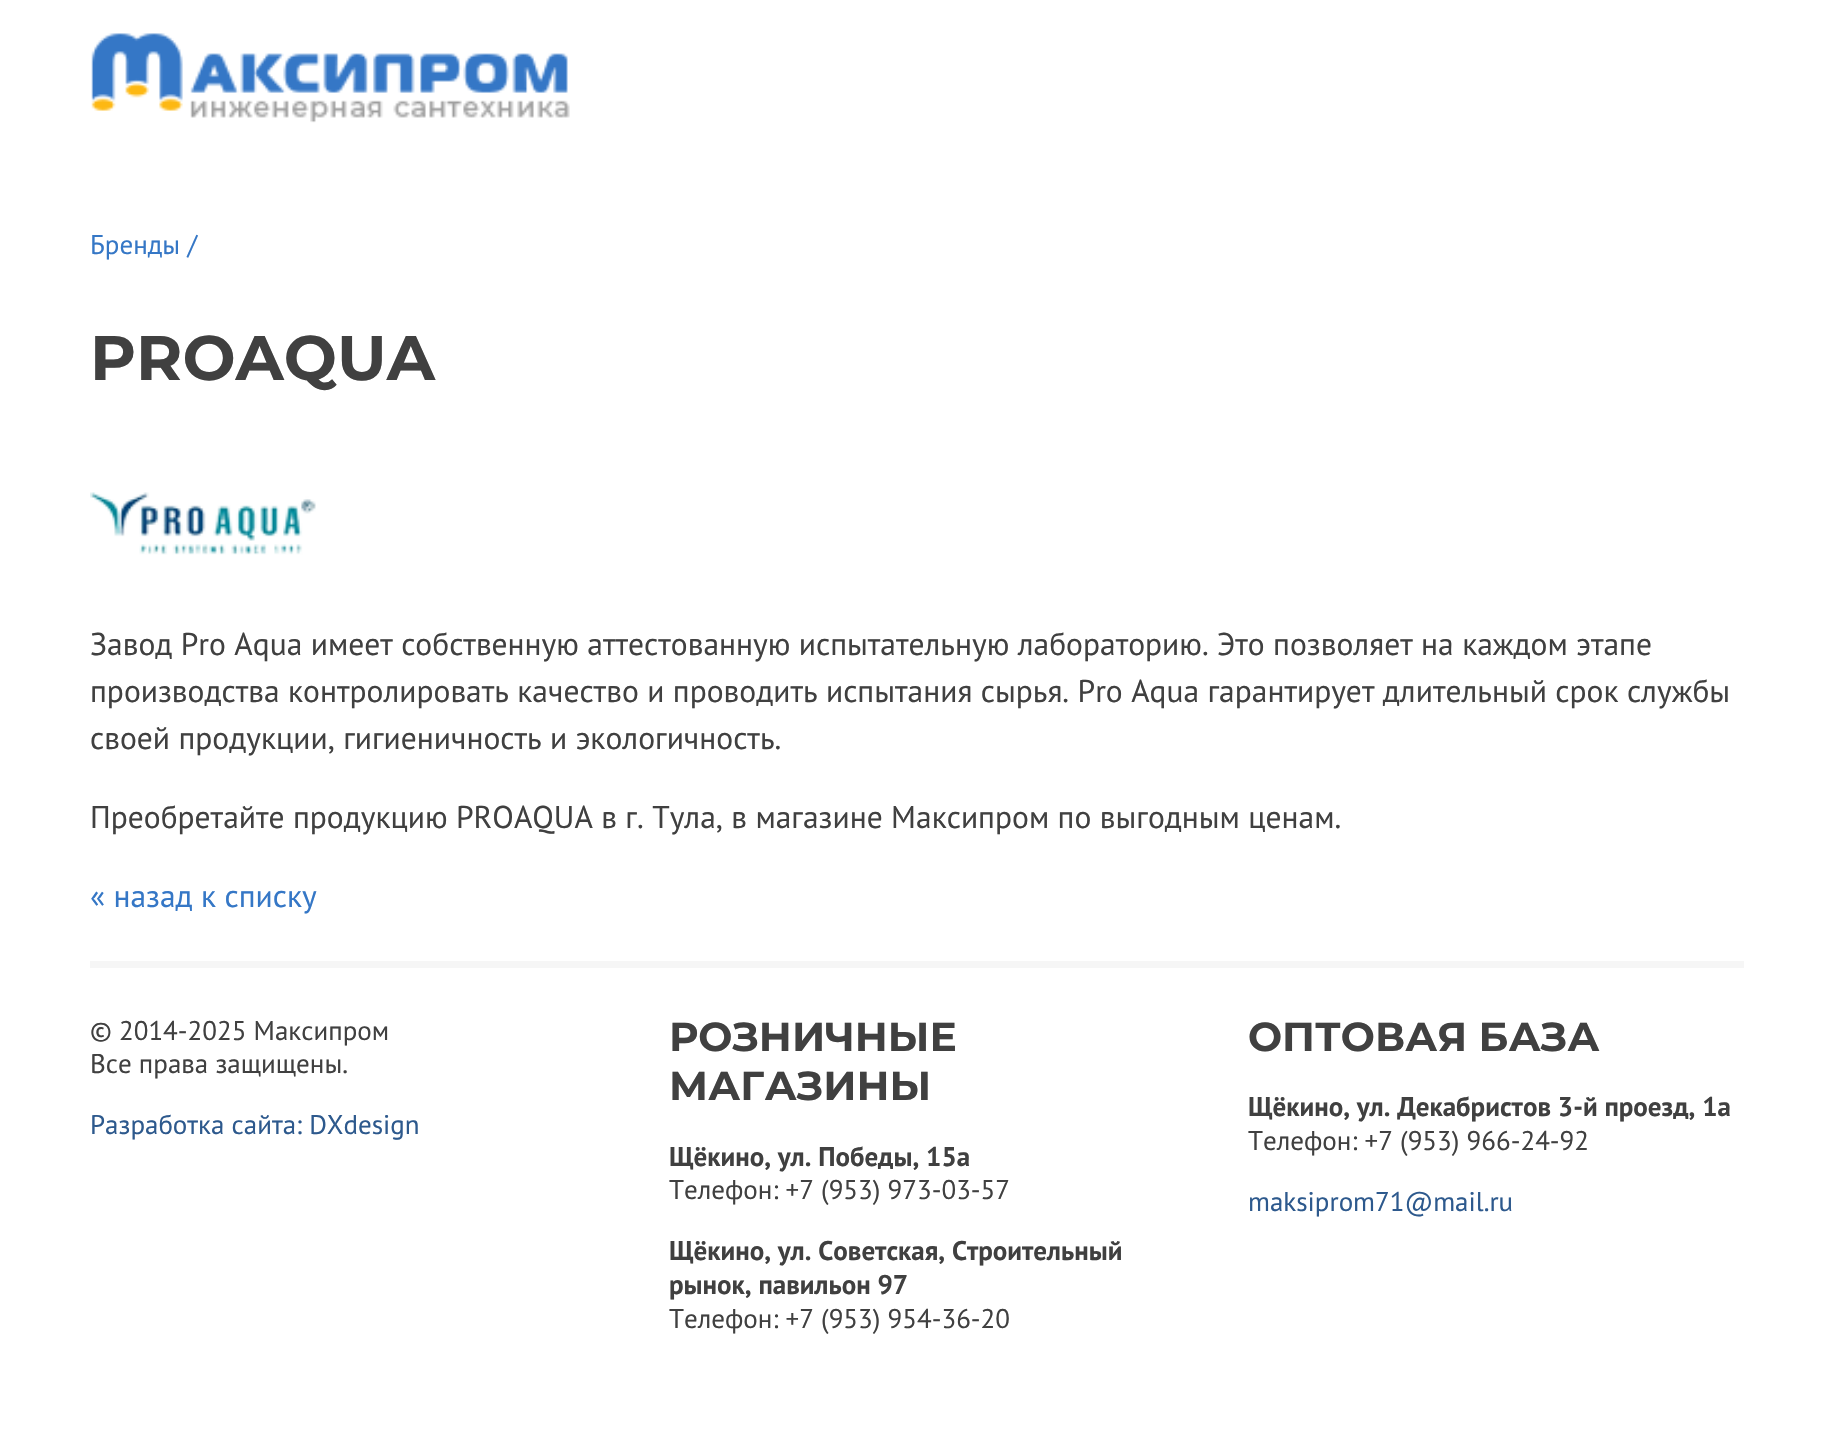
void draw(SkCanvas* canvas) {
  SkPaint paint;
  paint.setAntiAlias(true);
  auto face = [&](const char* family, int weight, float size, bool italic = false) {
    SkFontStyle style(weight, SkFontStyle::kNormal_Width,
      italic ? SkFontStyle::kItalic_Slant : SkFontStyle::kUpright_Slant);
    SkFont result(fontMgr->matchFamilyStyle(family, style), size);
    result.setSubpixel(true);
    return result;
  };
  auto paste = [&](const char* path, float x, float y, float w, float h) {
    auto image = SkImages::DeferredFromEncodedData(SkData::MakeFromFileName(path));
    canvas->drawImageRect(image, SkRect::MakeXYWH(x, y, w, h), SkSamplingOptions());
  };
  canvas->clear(0xffffffff);
  paste("img/1.png", 91, 33, 479, 90);
  paste("img/2.png", 90, 492, 226, 63);
  paint.setColor(0xfff6f6f6);
  canvas->drawRect(SkRect::MakeXYWH(90, 961, 1654, 7), paint);
  auto f0 = face("PT Sans", 400, 27);
  paint.setColor(0xff3577c6);
  canvas->drawString("Бренды /", 90, 254, f0, paint);
  auto f1 = face("Montserrat", 700, 63);
  paint.setColor(0xff404040);
  canvas->drawString("PROAQUA", 90, 380, f1, paint);
  auto f2 = face("PT Sans", 400, 31.5f);
  {
    const struct { const char* s; float x, y; } items[] = {
      {"Завод Pro Aqua имеет собственную аттестованную испытательную лабораторию. Это позволяет на каждом этапе", 90, 655},
      {"производства контролировать качество и проводить испытания сырья. Pro Aqua гарантирует длительный срок службы", 90, 702},
      {"своей продукции, гигиеничность и экологичность.", 90, 749},
      {"Преобретайте продукцию PROAQUA в г. Тула, в магазине Максипром по выгодным ценам.", 90, 828},
    };
    for (auto [s, x, y] : items) {
      canvas->drawString(s, x, y, f2, paint);
    }
  }
  paint.setColor(0xff3577c6);
  canvas->drawString("« назад к списку", 90, 907, f2, paint);
  paint.setColor(0xff404040);
  canvas->drawString("© 2014-2025 Максипром", 90, 1040, f0, paint);
  canvas->drawString("Все права защищены.", 90, 1073, f0, paint);
  paint.setColor(0xff2d598d);
  canvas->drawString("Разработка сайта: DXdesign", 90, 1134, f0, paint);
  auto f3 = face("Montserrat", 700, 40.5f);
  paint.setColor(0xff404040);
  canvas->drawString("РОЗНИЧНЫЕ", 669, 1051, f3, paint);
  canvas->drawString("МАГАЗИНЫ", 669, 1100, f3, paint);
  auto f4 = face("PT Sans", 700, 27);
  canvas->drawString("Щёкино, ул. Победы, 15а", 669, 1166, f4, paint);
  canvas->drawString("Телефон: +7 (953) 973-03-57", 669, 1199, f0, paint);
  canvas->drawString("Щёкино, ул. Советская, Строительный", 669, 1260, f4, paint);
  canvas->drawString("рынок, павильон 97", 669, 1294, f4, paint);
  canvas->drawString("Телефон: +7 (953) 954-36-20", 669, 1328, f0, paint);
  canvas->drawString("ОПТОВАЯ БАЗА", 1248, 1051, f3, paint);
  canvas->drawString("Щёкино, ул. Декабристов 3-й проезд, 1а", 1248, 1116, f4, paint);
  canvas->drawString("Телефон: +7 (953) 966-24-92", 1248, 1150, f0, paint);
  paint.setColor(0xff2d598d);
  canvas->drawString("maksiprom71@mail.ru", 1248, 1211, f0, paint);
}
